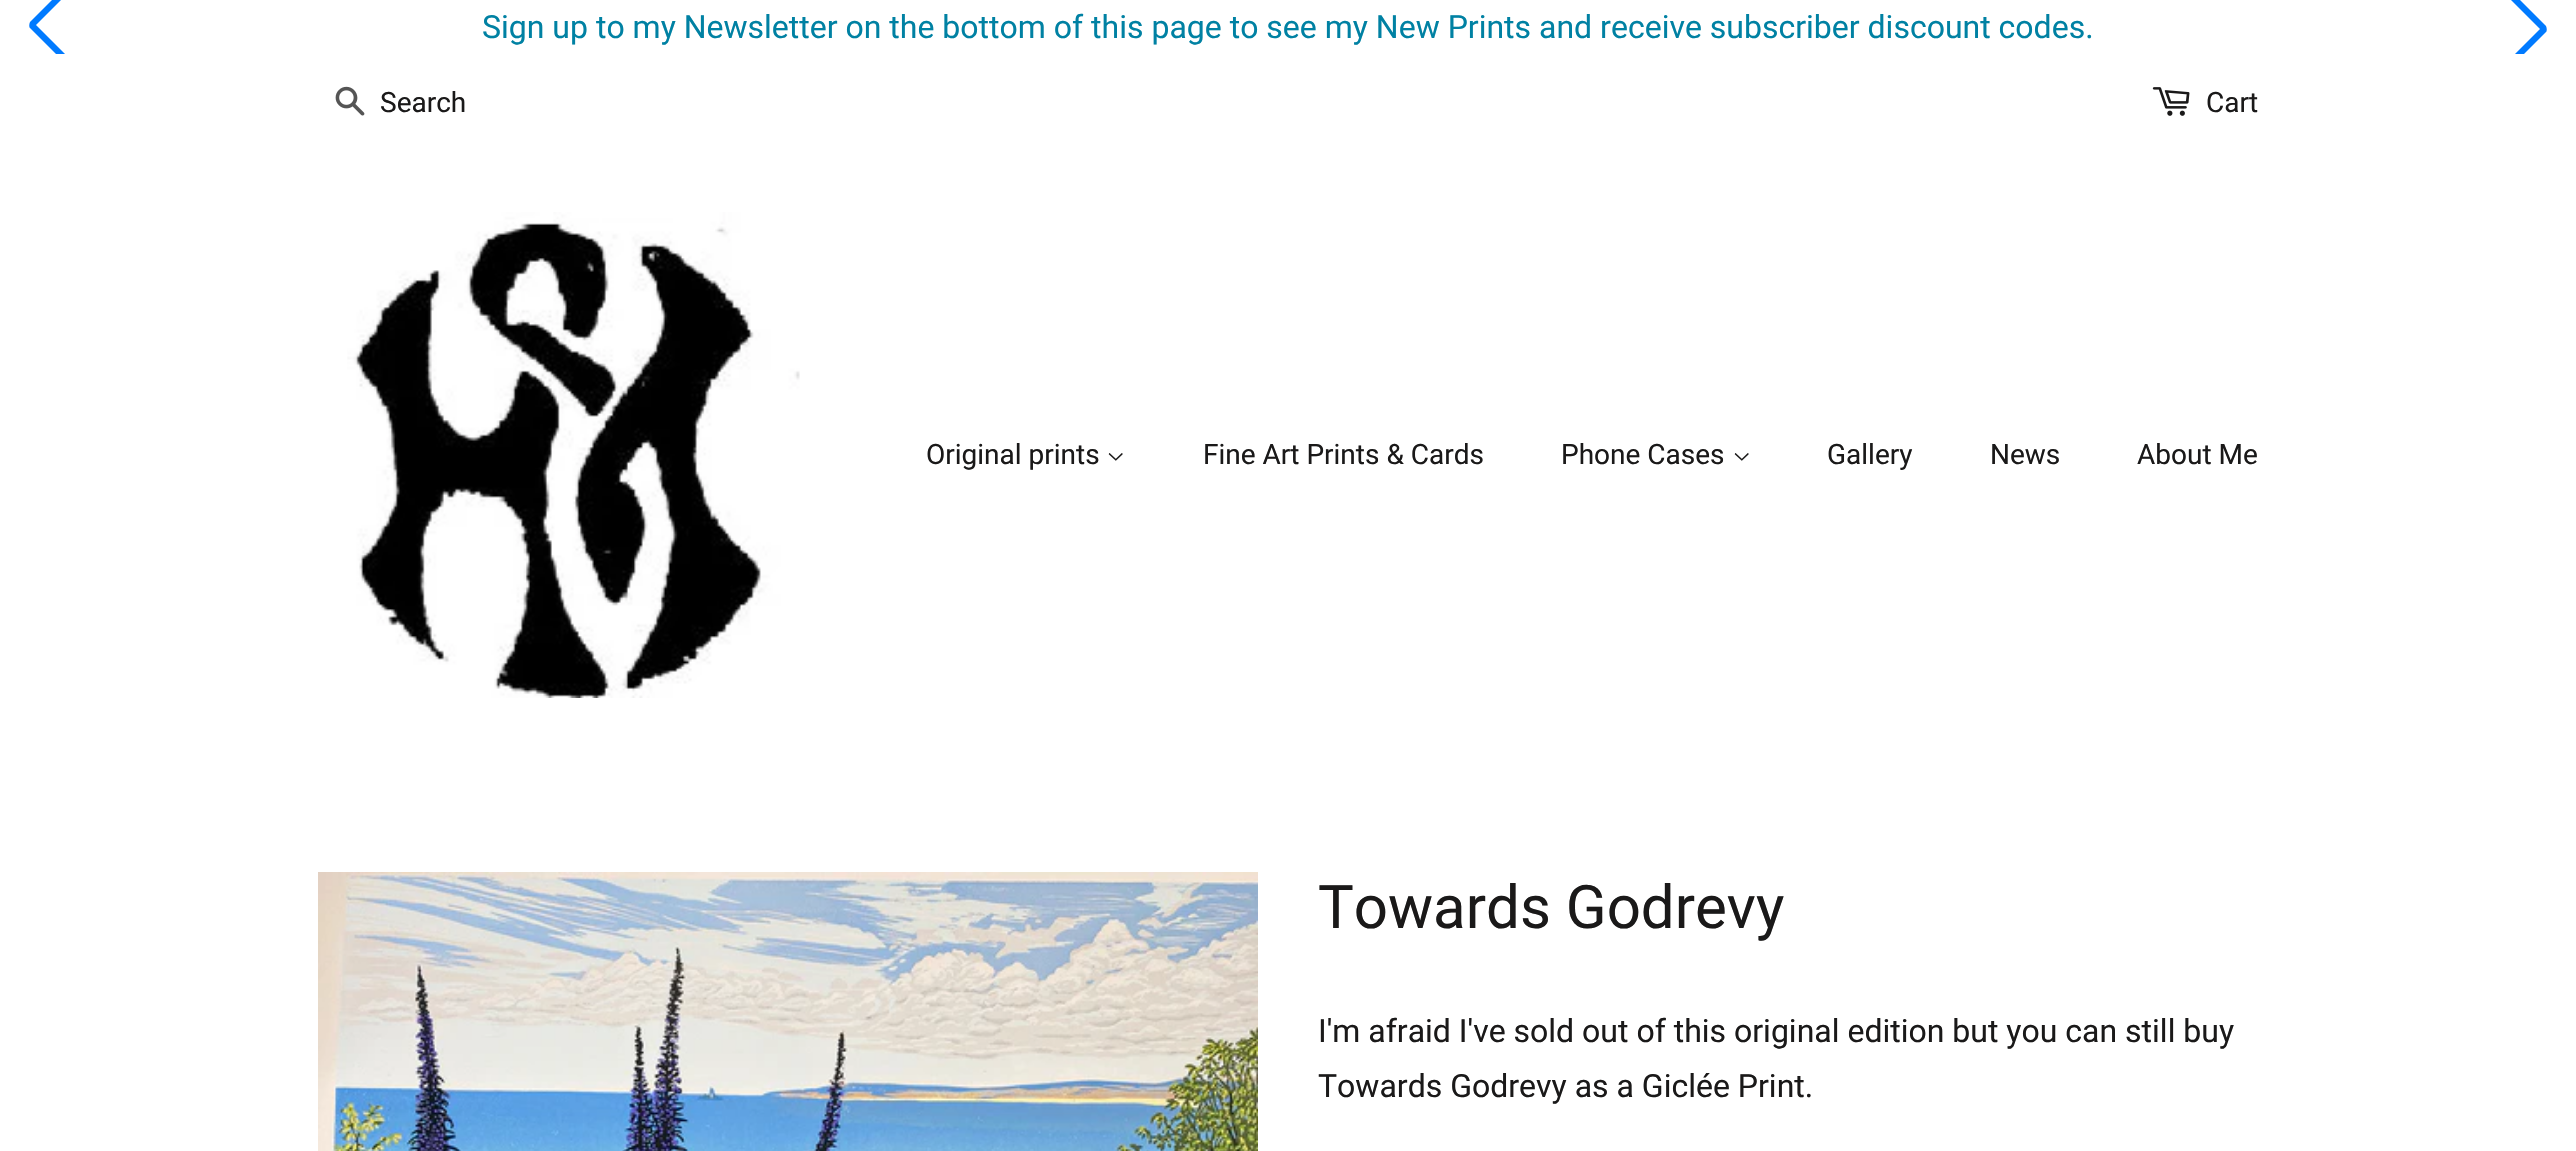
void draw(SkCanvas* canvas) {
  SkPaint paint;
  paint.setAntiAlias(true);
  auto face = [&](const char* family, int weight, float size, bool italic = false) {
    SkFontStyle style(weight, SkFontStyle::kNormal_Width,
      italic ? SkFontStyle::kItalic_Slant : SkFontStyle::kUpright_Slant);
    SkFont result(fontMgr->matchFamilyStyle(family, style), size);
    result.setSubpixel(true);
    return result;
  };
  auto paste = [&](const char* path, float x, float y, float w, float h) {
    auto image = SkImages::DeferredFromEncodedData(SkData::MakeFromFileName(path));
    canvas->drawImageRect(image, SkRect::MakeXYWH(x, y, w, h), SkSamplingOptions());
  };
  auto shape = [&](const char* data, bool evenOdd = false) {
    SkPath result = *SkParsePath::FromSVGString(data);
    if (evenOdd) result.setFillType(SkPathFillType::kEvenOdd);
    return result;
  };
  canvas->clear(0xffffffff);
  canvas->save();
  canvas->clipRect(SkRect::MakeXYWH(8, 0, 88, 54));
  paint.setColor(0xff007aff);
  canvas->drawPath(shape("M75-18C76-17 76-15 75-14L36 25L75 64C76 65 76 67 75 68C73 69 71 69 70 68L30 28C29 27 29 24 30 22L70-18C71-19 73-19 75-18Z"), paint);
  canvas->restore();
  canvas->save();
  canvas->clipRect(SkRect::MakeXYWH(2480, 0, 88, 54));
  canvas->drawPath(shape("M2501 72C2500 71 2500 69 2501 68L2540 29L2501-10C2500-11 2500-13 2501-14C2503-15 2505-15 2506-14L2546 26C2547 28 2547 31 2546 32L2506 72C2505 74 2503 74 2501 72Z"), paint);
  canvas->restore();
  paste("img/1.png", 335, 86, 30, 30);
  paste("img/2.png", 2152, 87, 38, 29);
  paste("img/3.png", 347, 212, 453, 486);
  paste("img/4.png", 1108, 453, 15, 8);
  paste("img/4.png", 1734, 453, 15, 8);
  paste("img/5.png", 318, 872, 940, 279);
  auto f0 = face("Roboto", 400, 32);
  paint.setColor(0xff0081a3);
  canvas->drawString("Sign up to my Newsletter on the bottom of this page to see my New Prints and receive subscriber discount codes.", 482, 38, f0, paint);
  auto f1 = face("Roboto", 400, 28);
  paint.setColor(0xff1a1919);
  {
    const struct { const char* s; float x, y; } items[] = {
      {"Search", 380, 112},
      {"Cart", 2206, 112},
      {"Original prints", 926, 464},
      {"Fine Art Prints & Cards", 1203, 464},
      {"Phone Cases", 1561, 464},
      {"Gallery", 1827, 464},
      {"News", 1990, 464},
      {"About Me", 2137, 464},
    };
    for (auto [s, x, y] : items) {
      canvas->drawString(s, x, y, f1, paint);
    }
  }
  auto f2 = face("Roboto", 400, 60);
  canvas->drawString("Towards Godrevy", 1318, 928, f2, paint);
  canvas->drawString("I'm afraid I've sold out of this original edition but you can still buy", 1318, 1042, f0, paint);
  canvas->drawString("Towards Godrevy as a Giclée Print.", 1318, 1097, f0, paint);
}
